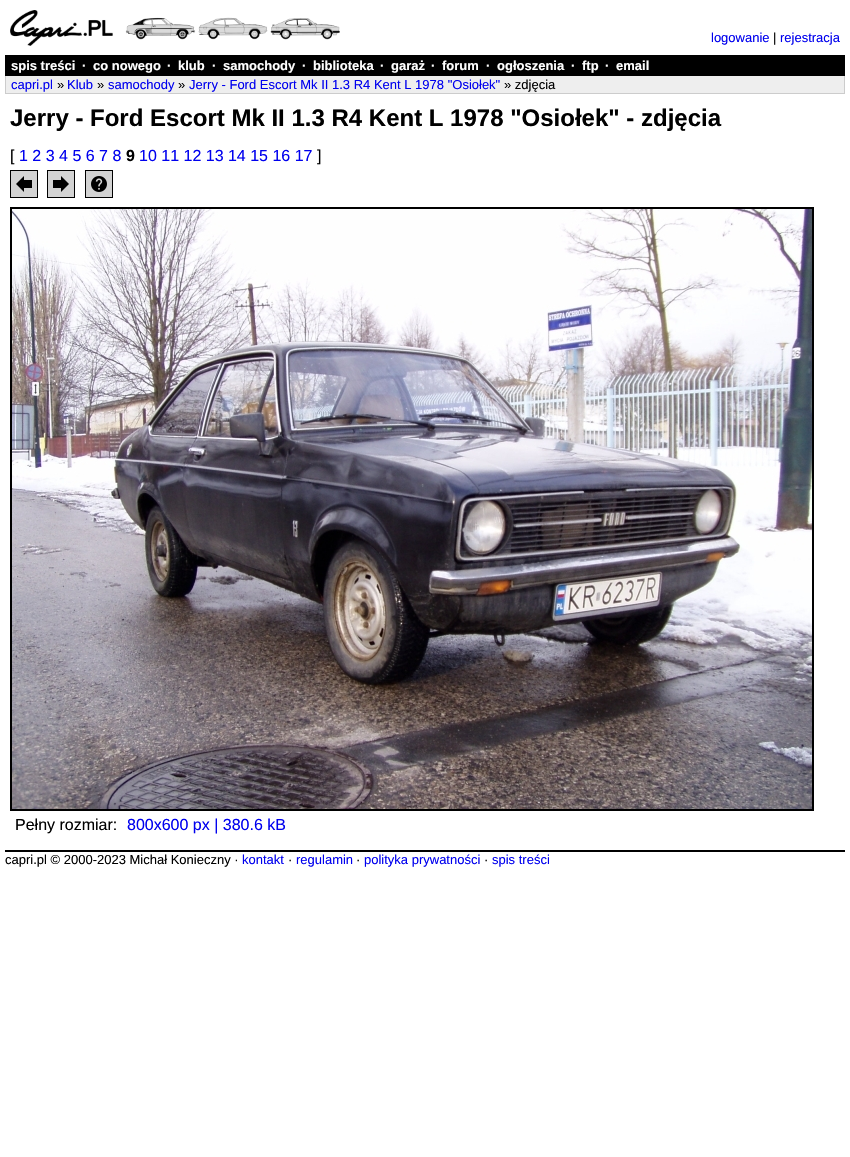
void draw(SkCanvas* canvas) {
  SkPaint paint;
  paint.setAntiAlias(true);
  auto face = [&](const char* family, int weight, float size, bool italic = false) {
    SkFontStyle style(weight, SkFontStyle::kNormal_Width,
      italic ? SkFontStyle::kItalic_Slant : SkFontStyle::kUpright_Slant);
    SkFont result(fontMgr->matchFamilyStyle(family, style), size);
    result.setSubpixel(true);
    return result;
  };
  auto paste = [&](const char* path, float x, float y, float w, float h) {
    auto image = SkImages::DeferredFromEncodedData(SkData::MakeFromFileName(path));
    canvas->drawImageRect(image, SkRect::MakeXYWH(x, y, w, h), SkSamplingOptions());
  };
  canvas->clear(0xffffffff);
  paste("img/1.png", 10, 10, 330, 36);
  {
    const struct { float x, y, w, h; SkColor color; } items[] = {
      {5, 55, 840, 21, 0xff000000},
      {6, 76, 838, 17, 0xffeeeeee},
      {844, 76, 1, 18, 0xffcccccc},
      {5, 93, 840, 1, 0xffcccccc},
      {5, 76, 1, 18, 0xffcccccc},
    };
    for (auto [x, y, w, h, color] : items) {
      paint.setColor(color);
      canvas->drawRect(SkRect::MakeXYWH(x, y, w, h), paint);
    }
  }
  paint.setColor(0xffd3d3d3);
  canvas->drawRect(SkRect::MakeXYWH(10.5f, 170.5f, 27, 27), paint);
  paint.setStroke(true);
  paint.setStrokeWidth(1);
  paint.setColor(0xff000000);
  canvas->drawRect(SkRect::MakeXYWH(10.5f, 170.5f, 27, 27), paint);
  paste("img/2.png", 16, 176, 16, 16);
  paint.setStroke(false);
  paint.setColor(0xffd3d3d3);
  canvas->drawRect(SkRect::MakeXYWH(47.5f, 170.5f, 27, 27), paint);
  paint.setStroke(true);
  paint.setColor(0xff000000);
  canvas->drawRect(SkRect::MakeXYWH(47.5f, 170.5f, 27, 27), paint);
  paste("img/3.png", 53, 176, 16, 16);
  paint.setStroke(false);
  paint.setColor(0xffd3d3d3);
  canvas->drawRect(SkRect::MakeXYWH(85.5f, 170.5f, 27, 27), paint);
  paint.setStroke(true);
  paint.setColor(0xff000000);
  canvas->drawRect(SkRect::MakeXYWH(85.5f, 170.5f, 27, 27), paint);
  paste("img/4.png", 91, 176, 16, 16);
  paint.setStroke(false);
  canvas->drawRect(SkRect::MakeXYWH(10, 207, 804, 604), paint);
  paste("img/5.png", 12, 209, 800, 600);
  canvas->drawRect(SkRect::MakeXYWH(5, 850, 840, 2), paint);
  auto f0 = face("Liberation Sans", 400, 13);
  paint.setColor(0xff0000ee);
  canvas->drawString("logowanie", 711, 42, f0, paint);
  paint.setColor(0xff000000);
  canvas->drawString("|", 773, 42, f0, paint);
  paint.setColor(0xff0000ee);
  canvas->drawString("rejestracja", 780, 42, f0, paint);
  auto f1 = face("Liberation Sans", 700, 13);
  paint.setColor(0xffffffff);
  {
    const struct { const char* s; float x, y; } items[] = {
      {"spis treści", 11, 70},
      {"·", 82, 70},
      {"co nowego", 93, 70},
      {"·", 167, 70},
      {"klub", 178, 70},
      {"·", 212, 70},
      {"samochody", 223, 70},
      {"·", 302, 70},
      {"biblioteka", 313, 70},
      {"·", 380, 70},
      {"garaż", 391, 70},
      {"·", 431, 70},
      {"forum", 442, 70},
      {"·", 486, 70},
      {"ogłoszenia", 497, 70},
      {"·", 571, 70},
      {"ftp", 582, 70},
      {"·", 605, 70},
      {"email", 616, 70},
    };
    for (auto [s, x, y] : items) {
      canvas->drawString(s, x, y, f1, paint);
    }
  }
  paint.setColor(0xff0000ee);
  canvas->drawString("capri.pl", 11, 89, f0, paint);
  paint.setColor(0xff000000);
  canvas->drawString("»", 57, 89, f0, paint);
  paint.setColor(0xff0000ee);
  canvas->drawString("Klub", 67, 89, f0, paint);
  paint.setColor(0xff000000);
  canvas->drawString("»", 97, 89, f0, paint);
  paint.setColor(0xff0000ee);
  canvas->drawString("samochody", 108, 89, f0, paint);
  paint.setColor(0xff000000);
  canvas->drawString("»", 178, 89, f0, paint);
  paint.setColor(0xff0000ee);
  canvas->drawString("Jerry - Ford Escort Mk II 1.3 R4 Kent L 1978 \"Osiołek\"", 189, 89, f0, paint);
  paint.setColor(0xff000000);
  canvas->drawString("» zdjęcia", 504, 89, f0, paint);
  auto f2 = face("Liberation Sans", 700, 24);
  canvas->drawString("Jerry - Ford Escort Mk II 1.3 R4 Kent L 1978 \"Osiołek\" - zdjęcia", 10, 126, f2, paint);
  auto f3 = face("Liberation Sans", 400, 16);
  canvas->drawString("[", 10, 161, f3, paint);
  paint.setColor(0xff0000ee);
  canvas->drawString("1 2 3 4 5 6 7 8", 19, 161, f3, paint);
  auto f4 = face("Liberation Sans", 700, 16);
  paint.setColor(0xff000000);
  canvas->drawString("9", 126, 161, f4, paint);
  paint.setColor(0xff0000ee);
  canvas->drawString("10 11 12 13 14 15 16 17", 139, 161, f3, paint);
  paint.setColor(0xff000000);
  canvas->drawString("]", 317, 161, f3, paint);
  canvas->drawString("Pełny rozmiar:", 15, 830, f3, paint);
  paint.setColor(0xff0000ee);
  canvas->drawString("800x600 px | 380.6 kB", 127, 830, f3, paint);
  paint.setColor(0xff000000);
  canvas->drawString("capri.pl © 2000-2023 Michał Konieczny ·", 5, 864, f0, paint);
  paint.setColor(0xff0000ee);
  canvas->drawString("kontakt", 242, 864, f0, paint);
  paint.setColor(0xff000000);
  canvas->drawString("·", 288, 864, f0, paint);
  paint.setColor(0xff0000ee);
  canvas->drawString("regulamin", 296, 864, f0, paint);
  paint.setColor(0xff000000);
  canvas->drawString("·", 356, 864, f0, paint);
  paint.setColor(0xff0000ee);
  canvas->drawString("polityka prywatności", 364, 864, f0, paint);
  paint.setColor(0xff000000);
  canvas->drawString("·", 484, 864, f0, paint);
  paint.setColor(0xff0000ee);
  canvas->drawString("spis treści", 492, 864, f0, paint);
}
